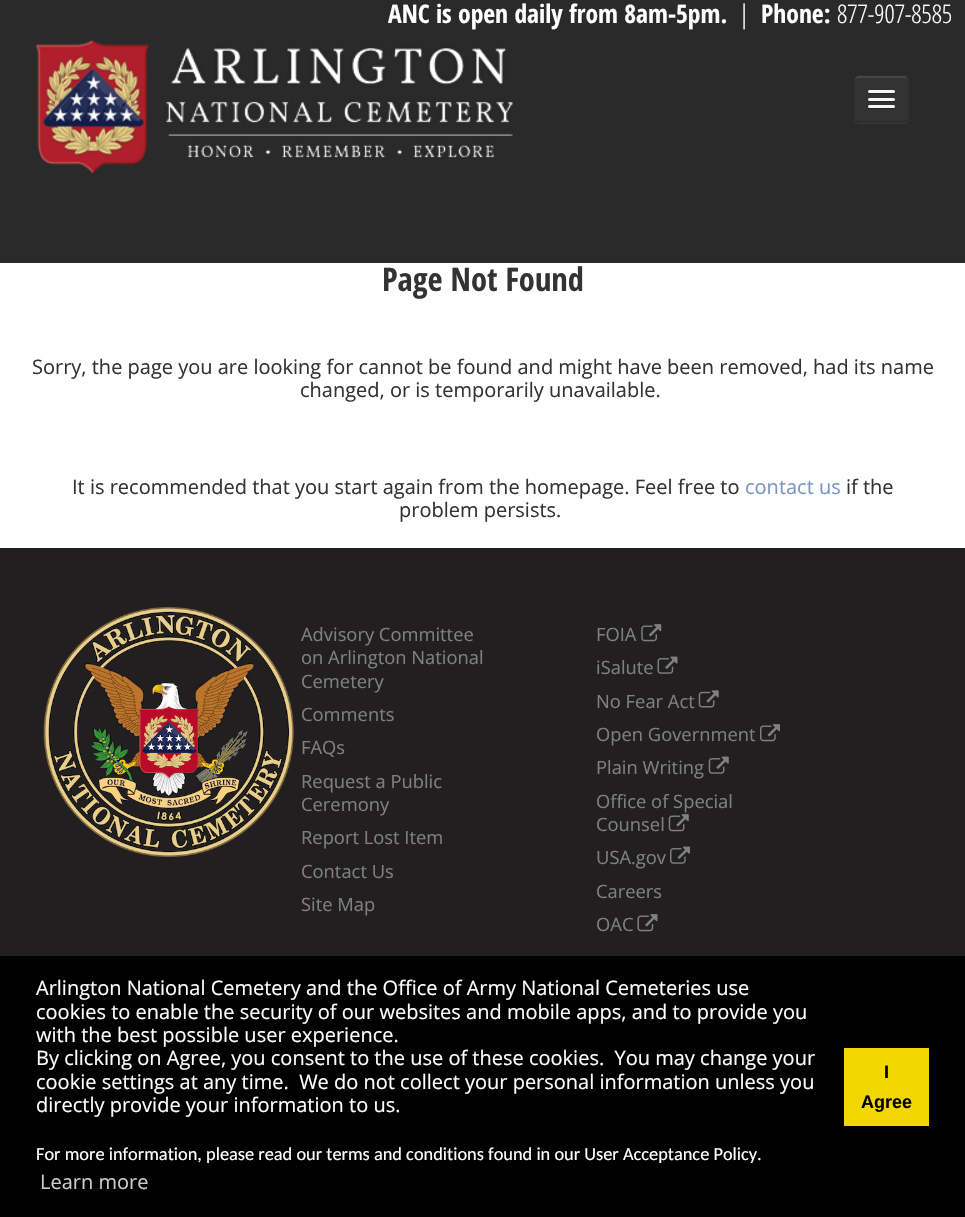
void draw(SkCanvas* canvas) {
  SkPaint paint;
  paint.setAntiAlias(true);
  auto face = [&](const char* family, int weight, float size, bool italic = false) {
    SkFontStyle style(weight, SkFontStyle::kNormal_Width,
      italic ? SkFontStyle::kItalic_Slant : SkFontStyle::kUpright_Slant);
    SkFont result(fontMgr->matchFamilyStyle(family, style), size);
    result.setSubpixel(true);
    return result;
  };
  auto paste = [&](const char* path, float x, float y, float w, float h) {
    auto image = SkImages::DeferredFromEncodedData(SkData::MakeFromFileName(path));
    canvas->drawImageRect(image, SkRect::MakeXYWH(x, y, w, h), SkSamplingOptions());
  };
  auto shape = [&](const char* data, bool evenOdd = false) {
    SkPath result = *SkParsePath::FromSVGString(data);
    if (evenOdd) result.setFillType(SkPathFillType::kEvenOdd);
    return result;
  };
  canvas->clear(0xffffffff);
  paint.setColor(0xff2b2a2a);
  canvas->drawRect(SkRect::MakeXYWH(0, 0, 965, 263), paint);
  paste("img/1.png", 36, 40, 477, 134);
  paint.setColor(0xff3b3a3a);
  canvas->drawPath(shape("M854 119C854 126 863 124 866 124H905C910 123 909 116 909 113V79V118C909 120 907 122 904 122H859C857 122 855 121 854 119Z"), paint);
  paint.setColor(0xff333333);
  canvas->drawRoundRect(SkRect::MakeXYWH(854, 75, 55, 48), 5, 5, paint);
  paint.setColor(0xff474747);
  canvas->drawPath(shape("M859 78H904C906 78 908 79 908 81C908 74 901 76 896 76H866C862 76 855 74 855 81C855 79 857 78 859 78Z"), paint);
  paint.setStroke(true);
  paint.setStrokeWidth(1.2f);
  paint.setColor(0xff262626);
  canvas->drawPath(shape("M907 120.5C906 121.5 905 122 904 122H859C857.5 122 856.5 121.5 855.5 120.5"), paint);
  paint.setColor(0x1a000000);
  canvas->drawPath(shape("M855.5 120.5C853.5 118.5 854.5 113.5 854.5 111V86C854.5 75 854.5 75.5 866 75.5H896C908 75.5 908 75 908 86V111C908 113.5 909 118.5 907 120.5"), paint);
  paint.setStroke(false);
  paint.setColor(0xff262626);
  canvas->drawPath(shape("M868 92.5C867.5 95 873 94 873.5 94H889.5C890 94 896.5 95 895 92C894 93.5 889.5 92.5 889.5 92.5C887 92.5 869 93 868 92.5Z"), paint);
  paint.setColor(0xfff5f5f5);
  canvas->drawRoundRect(SkRect::MakeXYWH(868, 90, 27, 3), 1.5f, 1.5f, paint);
  paint.setColor(0xff262626);
  canvas->drawPath(shape("M868 100C866.5 103 873 102 873.5 102H889.5C890 102 894.5 103 895 101L894.5 99.5L894 100Z"), paint);
  paint.setColor(0xfff5f5f5);
  canvas->drawRoundRect(SkRect::MakeXYWH(868, 98, 27, 3), 1.5f, 1.5f, paint);
  paint.setColor(0xff262626);
  canvas->drawPath(shape("M868 107.5C867.5 110 873 109 873.5 109H889.5C890 109 896.5 110 895 107C894 108.5 889.5 107.5 889.5 107.5C887 107.5 869 108 868 107.5Z"), paint);
  paint.setColor(0xfff5f5f5);
  canvas->drawRoundRect(SkRect::MakeXYWH(868, 105, 27, 3), 1.5f, 1.5f, paint);
  paint.setColor(0xff221f20);
  canvas->drawRect(SkRect::MakeXYWH(0, 548, 965, 408), paint);
  paste("img/2.png", 43, 607, 251, 250);
  paste("img/3.png", 641, 624, 21, 18);
  paste("img/4.png", 657, 656, 21, 18);
  paste("img/5.png", 698, 690, 21, 18);
  paste("img/6.png", 760, 724, 20, 18);
  paste("img/7.png", 708, 756, 21, 18);
  paste("img/8.png", 668, 814, 21, 18);
  paste("img/9.png", 670, 846, 20, 18);
  paste("img/10.png", 637, 914, 21, 18);
  paint.setColor(0xff000000);
  canvas->drawRect(SkRect::MakeXYWH(0, 956, 965, 261), paint);
  paint.setColor(0xfff1d600);
  canvas->drawRect(SkRect::MakeXYWH(844, 1048, 85, 78), paint);
  auto f0 = face("Open Sans Condensed", 700, 25.6f);
  paint.setColor(0xffffffff);
  canvas->drawString("ANC is open daily from 8am-5pm.", 388, 23, f0, paint);
  auto f1 = face("Open Sans Condensed", 300, 25.6f);
  canvas->drawString("|", 739, 23, f1, paint);
  canvas->drawString("Phone:", 761, 23, f0, paint);
  canvas->drawString("877-907-8585", 837, 23, f1, paint);
  auto f2 = face("Open Sans Condensed", 700, 32.5f);
  paint.setColor(0xff333333);
  canvas->drawString("Page Not Found", 382, 291, f2, paint);
  auto f3 = face("Open Sans", 400, 20);
  {
    const struct { const char* s; float x, y; } items[] = {
      {"Sorry, the page you are looking for cannot be found and might have been removed, had its name", 32, 374},
      {"changed, or is temporarily unavailable.", 300, 397},
      {"It is recommended that you start again from the homepage. Feel free to", 72, 494},
    };
    for (auto [s, x, y] : items) {
      canvas->drawString(s, x, y, f3, paint);
    }
  }
  paint.setColor(0xff7b96c1);
  canvas->drawString("contact us", 745, 494, f3, paint);
  paint.setColor(0xff333333);
  canvas->drawString("if the", 846, 494, f3, paint);
  canvas->drawString("problem persists.", 399, 517, f3, paint);
  auto f4 = face("Open Sans", 400, 18.35f);
  paint.setColor(0xff808080);
  {
    const struct { const char* s; float x, y; } items[] = {
      {"Advisory Committee", 301, 641},
      {"on Arlington National", 301, 664},
      {"Cemetery", 301, 688},
      {"Comments", 301, 721},
      {"FAQs", 301, 754},
      {"Request a Public", 301, 788},
      {"Ceremony", 301, 811},
      {"Report Lost Item", 301, 844},
      {"Contact Us", 301, 878},
      {"Site Map", 301, 911},
      {"FOIA", 596, 641},
      {"iSalute", 596, 674},
      {"No Fear Act", 596, 708},
      {"Open Government", 596, 741},
      {"Plain Writing", 596, 774},
      {"Office of Special", 596, 808},
      {"Counsel", 596, 831},
      {"USA.gov", 596, 864},
      {"Careers", 596, 898},
      {"OAC", 596, 931},
    };
    for (auto [s, x, y] : items) {
      canvas->drawString(s, x, y, f4, paint);
    }
  }
  paint.setColor(0xffffffff);
  {
    const struct { const char* s; float x, y; } items[] = {
      {"Arlington National Cemetery and the Office of Army National Cemeteries use", 36, 995},
      {"cookies to enable the security of our websites and mobile apps, and to provide you", 36, 1019},
      {"with the best possible user experience.", 36, 1042},
      {"By clicking on Agree, you consent to the use of these cookies.  You may change your", 36, 1065},
      {"cookie settings at any time.  We do not collect your personal information unless you", 36, 1089},
      {"directly provide your information to us.", 36, 1112},
    };
    for (auto [s, x, y] : items) {
      canvas->drawString(s, x, y, f3, paint);
    }
  }
  auto f5 = face("Carlito", 400, 18.35f);
  canvas->drawString("For more information, please read our terms and conditions found in our User Acceptance Policy.", 36, 1160, f5, paint);
  paint.setColor(0xffcccccc);
  canvas->drawString("Learn more", 40, 1189, f3, paint);
  auto f6 = face("Liberation Sans", 700, 18);
  paint.setColor(0xff000000);
  canvas->drawString("I", 884, 1078, f6, paint);
  canvas->drawString("Agree", 861, 1108, f6, paint);
}
